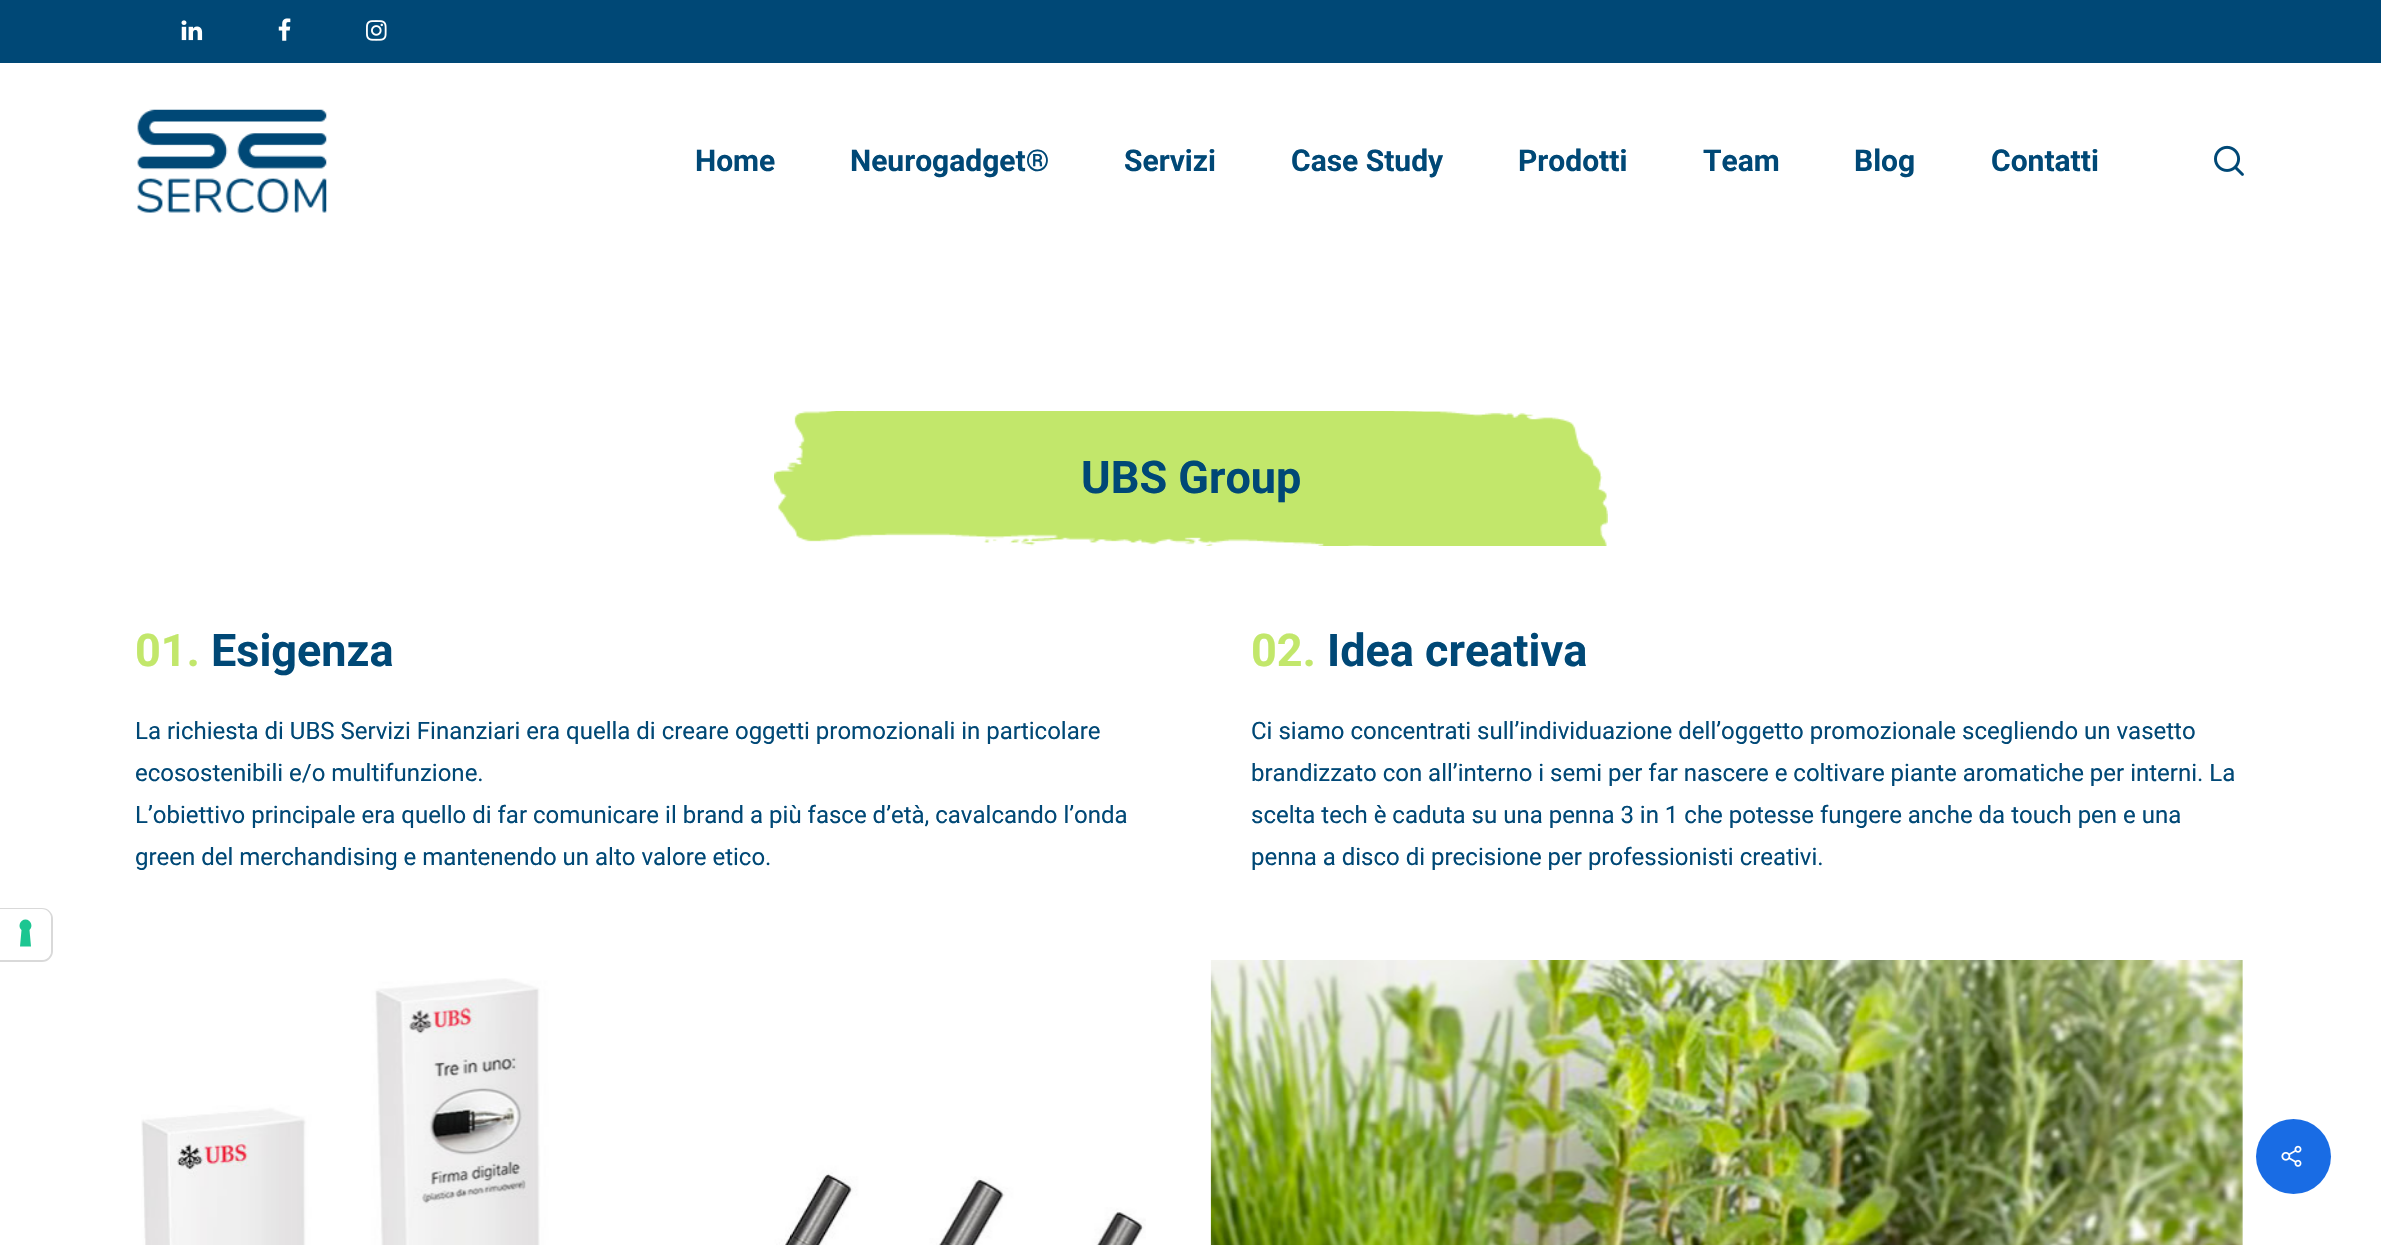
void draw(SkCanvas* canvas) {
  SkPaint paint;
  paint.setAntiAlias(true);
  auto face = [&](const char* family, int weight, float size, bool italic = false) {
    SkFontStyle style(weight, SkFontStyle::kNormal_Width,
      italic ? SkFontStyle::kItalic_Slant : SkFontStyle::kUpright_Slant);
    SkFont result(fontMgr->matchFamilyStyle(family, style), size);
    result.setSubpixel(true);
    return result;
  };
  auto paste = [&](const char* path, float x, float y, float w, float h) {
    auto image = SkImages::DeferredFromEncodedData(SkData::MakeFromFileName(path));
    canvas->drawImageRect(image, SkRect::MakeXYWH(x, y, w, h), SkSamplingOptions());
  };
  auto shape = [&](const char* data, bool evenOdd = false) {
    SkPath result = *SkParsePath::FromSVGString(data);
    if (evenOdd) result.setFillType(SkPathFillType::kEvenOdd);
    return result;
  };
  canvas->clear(0xffffffff);
  paint.setColor(0xff004876);
  canvas->drawRect(SkRect::MakeXYWH(0, 0, 2381, 63), paint);
  paste("img/1.png", 181, 20, 22, 21);
  paste("img/2.png", 278, 18, 13, 23);
  paste("img/3.png", 366, 20, 21, 21);
  paste("img/4.png", 137, 109, 190, 104);
  paste("img/5.png", 2214, 145, 30, 31);
  paste("img/6.png", 774, 411, 834, 135);
  paste("img/7.png", 141, 978, 1005, 267);
  paste("img/8.png", 1210, 960, 1033, 285);
  paint.setColor(0xff196ce4);
  canvas->drawCircle(2293.5f, 1156.5f, 37.5f, paint);
  paste("img/9.png", 2281, 1145, 21, 22);
  paint.setStroke(true);
  paint.setStrokeWidth(2);
  paint.setColor(0xffd9d9d9);
  canvas->drawPath(shape("M0 909H42C47.5 909 52 913.5 52 919V951C52 956.5 47.5 961 42 961H0Z"), paint);
  paint.setStroke(false);
  paint.setColor(0xffffffff);
  canvas->drawPath(shape("M0 909H42C47 909 51 913 51 918V951C51 956 47 960 42 960H0Z"), paint);
  paint.setColor(0xff1cc691);
  canvas->drawPath(shape("M25.5 919.5C31 919.5 33.5 926.5 29.5 930L31 946.5H20L21.5 930C17.5 926.5 20 919.5 25.5 919.5Z", true), paint);
  auto f0 = face("Roboto", 700, 30);
  paint.setColor(0xff004876);
  {
    const struct { const char* s; float x, y; } items[] = {
      {"Home", 695, 171},
      {"Neurogadget®", 850, 171},
      {"Servizi", 1124, 171},
      {"Case Study", 1291, 171},
      {"Prodotti", 1518, 171},
      {"Team", 1703, 171},
      {"Blog", 1854, 171},
      {"Contatti", 1991, 171},
    };
    for (auto [s, x, y] : items) {
      canvas->drawString(s, x, y, f0, paint);
    }
  }
  auto f1 = face("Roboto", 700, 45);
  canvas->drawString("UBS Group", 1081, 493, f1, paint);
  paint.setColor(0xffc2e76b);
  canvas->drawString("01.", 135, 666, f1, paint);
  paint.setColor(0xff004876);
  canvas->drawString("Esigenza", 211, 666, f1, paint);
  auto f2 = face("Roboto", 400, 24);
  {
    const struct { const char* s; float x, y; } items[] = {
      {"La richiesta di UBS Servizi Finanziari era quella di creare oggetti promozionali in particolare", 135, 739},
      {"ecosostenibili e/o multifunzione.", 135, 781},
      {"L’obiettivo principale era quello di far comunicare il brand a più fasce d’età, cavalcando l’onda", 135, 823},
      {"green del merchandising e mantenendo un alto valore etico.", 135, 865},
    };
    for (auto [s, x, y] : items) {
      canvas->drawString(s, x, y, f2, paint);
    }
  }
  paint.setColor(0xffc2e76b);
  canvas->drawString("02.", 1251, 666, f1, paint);
  paint.setColor(0xff004876);
  canvas->drawString("Idea creativa", 1327, 666, f1, paint);
  {
    const struct { const char* s; float x, y; } items[] = {
      {"Ci siamo concentrati sull’individuazione dell’oggetto promozionale scegliendo un vasetto", 1251, 739},
      {"brandizzato con all’interno i semi per far nascere e coltivare piante aromatiche per interni. La", 1251, 781},
      {"scelta tech è caduta su una penna 3 in 1 che potesse fungere anche da touch pen e una", 1251, 823},
      {"penna a disco di precisione per professionisti creativi.", 1251, 865},
    };
    for (auto [s, x, y] : items) {
      canvas->drawString(s, x, y, f2, paint);
    }
  }
}
